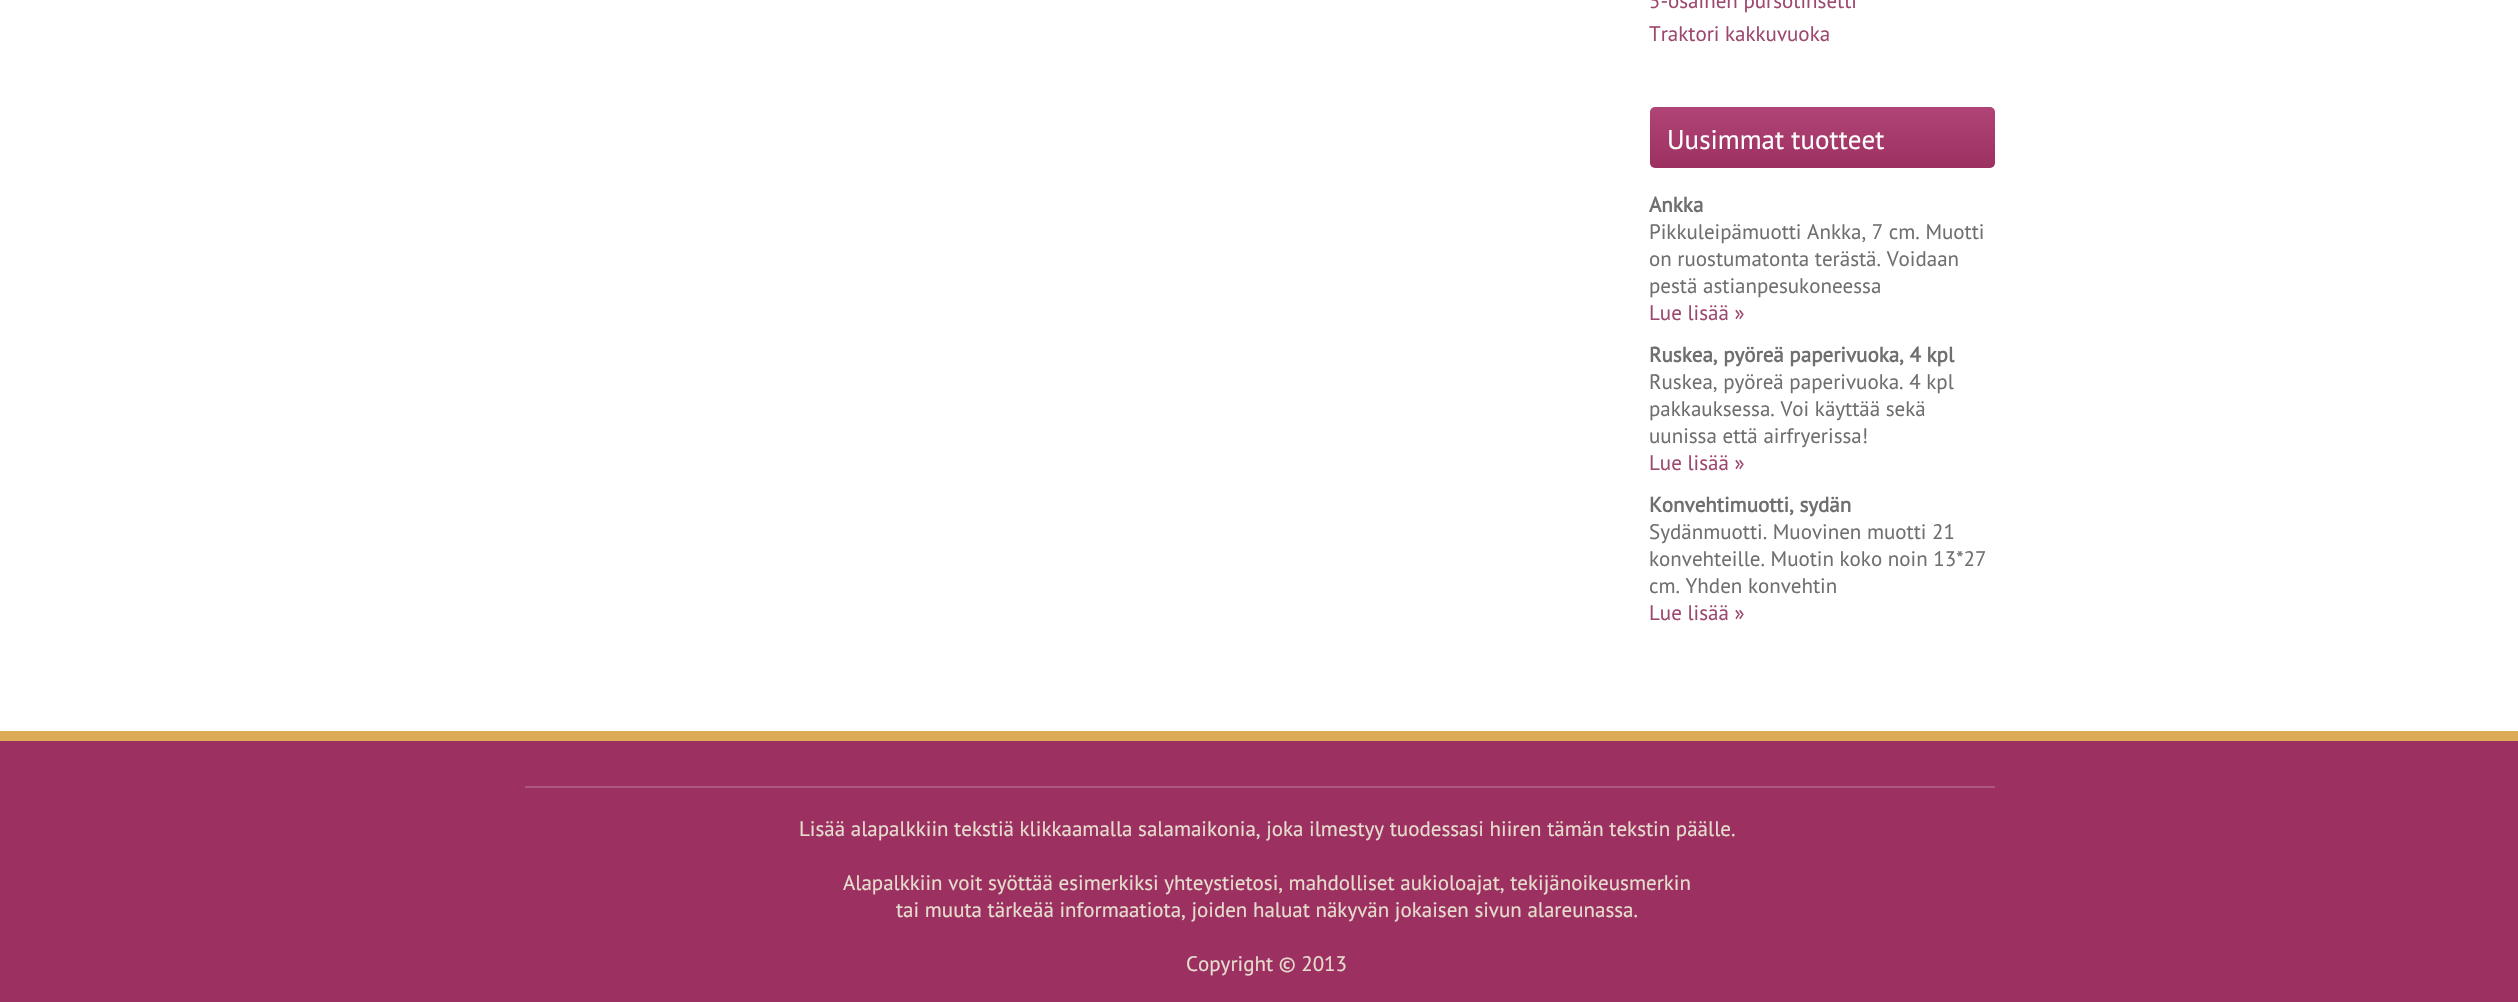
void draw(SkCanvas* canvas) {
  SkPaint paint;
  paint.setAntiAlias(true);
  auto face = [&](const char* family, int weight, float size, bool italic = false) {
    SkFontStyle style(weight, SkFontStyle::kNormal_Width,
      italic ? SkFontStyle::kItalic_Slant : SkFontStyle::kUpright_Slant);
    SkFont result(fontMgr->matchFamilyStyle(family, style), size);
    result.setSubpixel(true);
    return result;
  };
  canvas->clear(0xffffffff);
  {
    const SkColor colors[] = {0xffb24577, 0xff9b3061};
    const float stops[] = {0, 1};
    const SkPoint ends[] = {{1823, 106}, {1823, 168}};
    paint.setShader(SkGradientShader::MakeLinear(ends, colors, stops, 2, SkTileMode::kClamp));
    paint.setAlpha(255);
  }
  canvas->drawRoundRect(SkRect::MakeXYWH(1650, 107, 345, 61), 5, 5, paint);
  paint.setShader(nullptr);
  {
    const struct { float x, y, w, h; SkColor color; } items[] = {
      {0, 741, 2518, 261, 0xff9b3061},
      {0, 731, 2518, 10, 0xffddab56},
      {525, 786, 1470, 2, 0xffae577f},
    };
    for (auto [x, y, w, h, color] : items) {
      paint.setColor(color);
      canvas->drawRect(SkRect::MakeXYWH(x, y, w, h), paint);
    }
  }
  auto f0 = face("PT Sans", 400, 21);
  paint.setColor(0xff9d486f);
  canvas->drawString("5-osainen pursotinsetti", 1649, 8, f0, paint);
  canvas->drawString("Traktori kakkuvuoka", 1649, 41, f0, paint);
  auto f1 = face("PT Sans", 400, 27);
  paint.setColor(0xffffffff);
  canvas->drawString("Uusimmat tuotteet", 1667, 149, f1, paint);
  auto f2 = face("PT Sans", 700, 21);
  paint.setColor(0xff6f6f6f);
  canvas->drawString("Ankka", 1649, 212, f2, paint);
  {
    const struct { const char* s; float x, y; } items[] = {
      {"Pikkuleipämuotti Ankka, 7 cm. Muotti", 1649, 239},
      {"on ruostumatonta terästä. Voidaan", 1649, 266},
      {"pestä astianpesukoneessa", 1649, 293},
    };
    for (auto [s, x, y] : items) {
      canvas->drawString(s, x, y, f0, paint);
    }
  }
  paint.setColor(0xff9d486f);
  canvas->drawString("Lue lisää »", 1649, 320, f0, paint);
  paint.setColor(0xff6f6f6f);
  canvas->drawString("Ruskea, pyöreä paperivuoka, 4 kpl", 1649, 362, f2, paint);
  {
    const struct { const char* s; float x, y; } items[] = {
      {"Ruskea, pyöreä paperivuoka. 4 kpl", 1649, 389},
      {"pakkauksessa. Voi käyttää sekä", 1649, 416},
      {"uunissa että airfryerissa!", 1649, 443},
    };
    for (auto [s, x, y] : items) {
      canvas->drawString(s, x, y, f0, paint);
    }
  }
  paint.setColor(0xff9d486f);
  canvas->drawString("Lue lisää »", 1649, 470, f0, paint);
  paint.setColor(0xff6f6f6f);
  canvas->drawString("Konvehtimuotti, sydän", 1649, 512, f2, paint);
  {
    const struct { const char* s; float x, y; } items[] = {
      {"Sydänmuotti. Muovinen muotti 21", 1649, 539},
      {"konvehteille. Muotin koko noin 13*27", 1649, 566},
      {"cm. Yhden konvehtin", 1649, 593},
    };
    for (auto [s, x, y] : items) {
      canvas->drawString(s, x, y, f0, paint);
    }
  }
  paint.setColor(0xff9d486f);
  canvas->drawString("Lue lisää »", 1649, 620, f0, paint);
  paint.setColor(0xffe6dccd);
  {
    const struct { const char* s; float x, y; } items[] = {
      {"Lisää alapalkkiin tekstiä klikkaamalla salamaikonia, joka ilmestyy tuodessasi hiiren tämän tekstin päälle.", 799, 836},
      {"Alapalkkiin voit syöttää esimerkiksi yhteystietosi, mahdolliset aukioloajat, tekijänoikeusmerkin", 843, 890},
      {"tai muuta tärkeää informaatiota, joiden haluat näkyvän jokaisen sivun alareunassa.", 896, 917},
      {"Copyright © 2013", 1186, 971},
    };
    for (auto [s, x, y] : items) {
      canvas->drawString(s, x, y, f0, paint);
    }
  }
}
